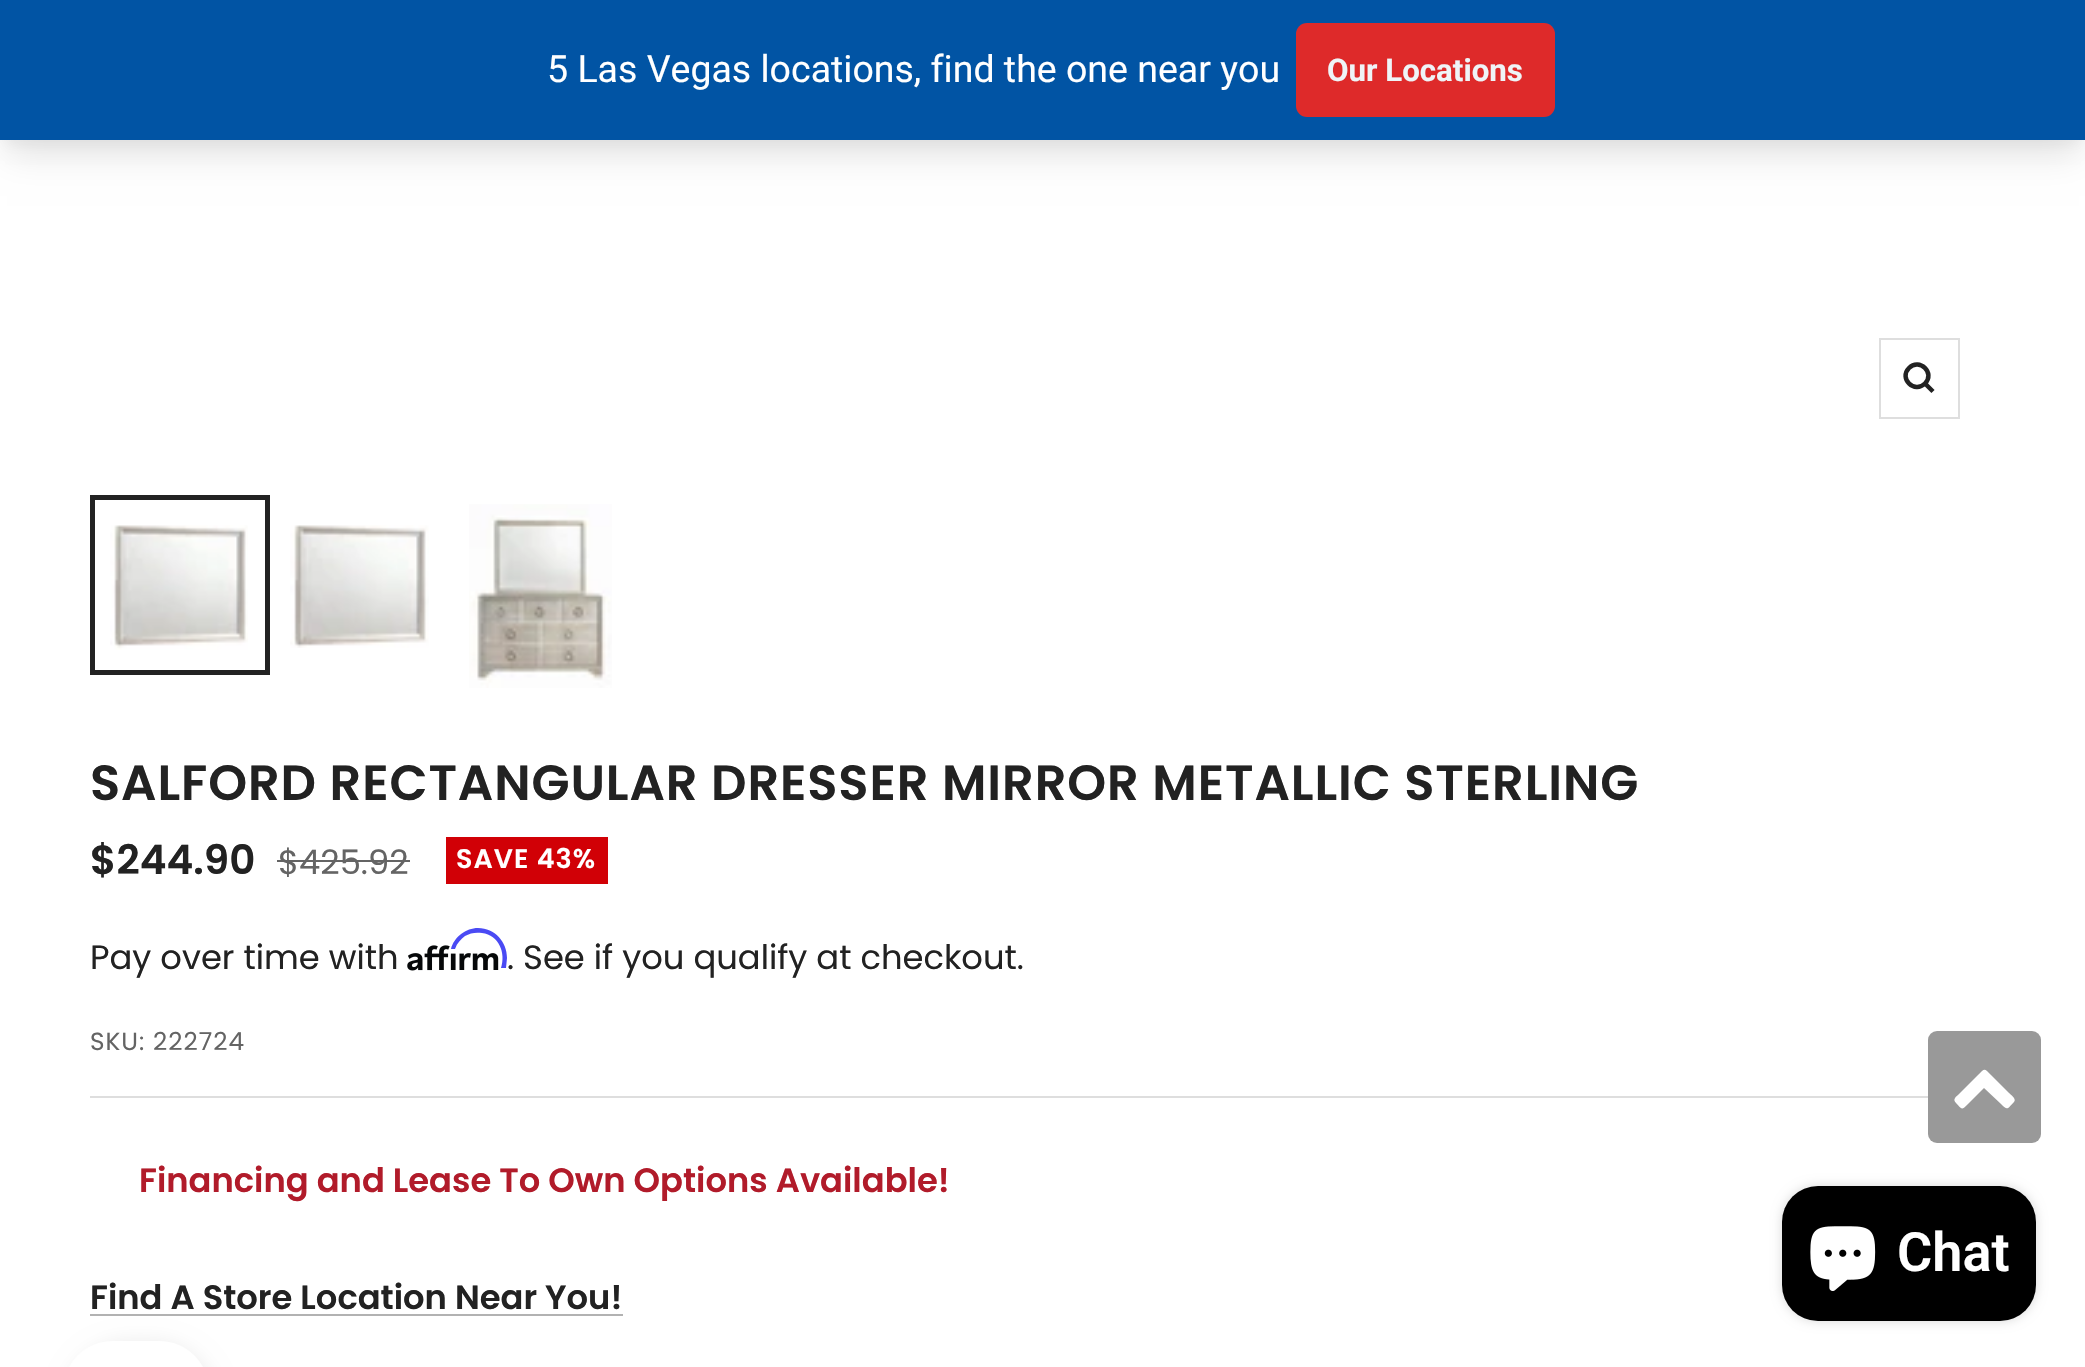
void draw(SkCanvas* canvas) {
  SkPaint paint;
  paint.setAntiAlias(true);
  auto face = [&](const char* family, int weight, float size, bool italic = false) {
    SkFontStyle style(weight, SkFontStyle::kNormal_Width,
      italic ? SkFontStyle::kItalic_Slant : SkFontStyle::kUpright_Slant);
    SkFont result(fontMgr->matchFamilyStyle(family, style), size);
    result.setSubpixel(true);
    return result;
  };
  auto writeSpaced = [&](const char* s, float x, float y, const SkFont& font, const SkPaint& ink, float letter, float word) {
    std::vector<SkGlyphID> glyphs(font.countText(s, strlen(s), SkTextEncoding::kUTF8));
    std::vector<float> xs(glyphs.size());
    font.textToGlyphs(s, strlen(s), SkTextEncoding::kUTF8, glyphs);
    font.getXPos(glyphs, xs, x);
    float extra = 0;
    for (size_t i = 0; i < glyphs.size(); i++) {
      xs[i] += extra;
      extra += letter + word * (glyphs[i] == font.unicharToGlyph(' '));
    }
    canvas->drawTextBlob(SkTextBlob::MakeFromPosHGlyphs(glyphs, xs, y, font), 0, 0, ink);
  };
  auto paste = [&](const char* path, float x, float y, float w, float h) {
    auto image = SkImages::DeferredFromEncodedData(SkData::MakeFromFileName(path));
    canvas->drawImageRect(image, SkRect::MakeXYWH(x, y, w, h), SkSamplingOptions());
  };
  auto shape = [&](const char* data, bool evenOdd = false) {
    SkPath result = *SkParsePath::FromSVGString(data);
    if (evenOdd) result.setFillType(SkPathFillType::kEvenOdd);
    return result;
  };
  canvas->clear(0xffffffff);
  paint.setColor(0x0d000000);
  paint.setMaskFilter(SkMaskFilter::MakeBlur(kNormal_SkBlurStyle, 7));
  canvas->drawRect(SkRect::MakeXYWH(5, 14, 2076, 130), paint);
  paint.setMaskFilter(nullptr);
  paint.setColor(0x1a000000);
  paint.setMaskFilter(SkMaskFilter::MakeBlur(kNormal_SkBlurStyle, 17));
  canvas->drawRect(SkRect::MakeXYWH(7, 29, 2072, 126), paint);
  paint.setMaskFilter(nullptr);
  paint.setColor(0xff0154a4);
  canvas->drawRect(SkRect::MakeXYWH(0, 0, 2085, 140), paint);
  paint.setColor(0xffde2a2a);
  canvas->drawRoundRect(SkRect::MakeXYWH(1296, 23, 259, 94), 11, 11, paint);
  paint.setStroke(true);
  paint.setStrokeWidth(2);
  paint.setColor(0xffdedede);
  canvas->drawRect(SkRect::MakeXYWH(1880, 339, 79, 79), paint);
  paint.setStrokeWidth(4.5f);
  paint.setColor(0xff222222);
  canvas->drawPath(shape("M1925 383.5C1935.5 373 1919.5 357.5 1909 368C1898.5 378.5 1914.5 394 1925 383.5ZM1925 383.5L1933 391.5"), paint);
  paste("img/1.png", 110, 525, 138, 125);
  paint.setStrokeWidth(5);
  canvas->drawRect(SkRect::MakeXYWH(92.5f, 497.5f, 175, 175), paint);
  paste("img/2.png", 290, 525, 139, 123);
  paste("img/3.png", 469, 504, 143, 184);
  paint.setStroke(false);
  {
    const struct { float x, y, w, h; SkColor color; } items[] = {
      {90, 1096, 1838, 2, 0xffdedede},
      {277, 860, 133, 2, 0xff646464},
      {446, 837, 162, 47, 0xffd10006},
    };
    for (auto [x, y, w, h, color] : items) {
      paint.setColor(color);
      canvas->drawRect(SkRect::MakeXYWH(x, y, w, h), paint);
    }
  }
  paste("img/4.png", 407, 945, 92, 26);
  paint.setColor(0xff4a4af4);
  canvas->drawPath(shape("M478 928C466 928 454 937 451 949H455C457 943 461 939 465 936C470 933 476 932 482 933C499 935 506 953 501 968H506L507 958C507 942 495 928 478 928Z"), paint);
  paint.setColor(0xffb2b2b2);
  canvas->drawRect(SkRect::MakeXYWH(90, 1314, 533, 2), paint);
  paint.setColor(0xff999999);
  canvas->drawRoundRect(SkRect::MakeXYWH(1928, 1031, 113, 112), 9, 9, paint);
  paint.setColor(0xffffffff);
  canvas->drawPath(shape("M2014 1102C2007 1109 2008 1111 2001 1104L1984 1088L1968 1104C1961 1111 1962 1109 1956 1103C1952 1099 1956 1097 1960 1093L1978 1075C1985 1068 1984 1068 1991 1075L2009 1093C2010 1094 2017 1099 2014 1102Z"), paint);
  paint.setColor(0x26000000);
  paint.setMaskFilter(SkMaskFilter::MakeBlur(kNormal_SkBlurStyle, 5.5f));
  canvas->drawRoundRect(SkRect::MakeXYWH(1782, 1186, 254, 135), 36, 36, paint);
  paint.setMaskFilter(nullptr);
  paint.setColor(0xff000000);
  canvas->drawRoundRect(SkRect::MakeXYWH(1782, 1186, 254, 135), 36, 36, paint);
  paste("img/5.png", 1810, 1226, 66, 65);
  paint.setColor(0x12000000);
  paint.setMaskFilter(SkMaskFilter::MakeBlur(kNormal_SkBlurStyle, 10));
  canvas->drawRoundRect(SkRect::MakeXYWH(63, 1341, 155, 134), 77.5f, 77.5f, paint);
  paint.setMaskFilter(nullptr);
  paint.setColor(0xffffffff);
  canvas->drawRoundRect(SkRect::MakeXYWH(63, 1341, 146, 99), 73, 73, paint);
  auto f0 = face("Roboto", 400, 37.5f);
  canvas->drawString("5 Las Vegas locations, find the one near you", 547, 82, f0, paint);
  auto f1 = face("Roboto", 700, 31.25f);
  paint.setColor(0xffeff4f7);
  canvas->drawString("Our Locations", 1327, 81, f1, paint);
  auto f2 = face("Poppins", 600, 49.5f);
  paint.setColor(0xff222222);
  writeSpaced("SALFORD RECTANGULAR DRESSER MIRROR METALLIC STERLING", 90, 800, f2, paint, 0.9f, 0);
  auto f3 = face("Poppins", 600, 40.5f);
  canvas->drawString("$244.90", 90, 874, f3, paint);
  auto f4 = face("Poppins", 400, 33.75f);
  paint.setColor(0xff646464);
  canvas->drawString("$425.92", 278, 874, f4, paint);
  auto f5 = face("Poppins", 600, 27);
  paint.setColor(0xffffffff);
  writeSpaced("SAVE 43%", 456, 868, f5, paint, 1, 0);
  paint.setColor(0xff222222);
  canvas->drawString("Pay over time with", 90, 969, f4, paint);
  canvas->drawString(". See if you qualify at checkout.", 507, 969, f4, paint);
  auto f6 = face("Poppins", 400, 24.75f);
  paint.setColor(0xff646464);
  writeSpaced("SKU: 222724", 90, 1050, f6, paint, 1, 0);
  auto f7 = face("Poppins", 600, 33.75f);
  paint.setColor(0xffb11b2a);
  canvas->drawString("Financing and Lease To Own Options Available!", 139, 1192, f7, paint);
  paint.setColor(0xff222222);
  canvas->drawString("Find A Store Location Near You!", 90, 1309, f7, paint);
  auto f8 = face("Roboto", 600, 54);
  paint.setColor(0xffffffff);
  canvas->drawString("Chat", 1897, 1271, f8, paint);
}
